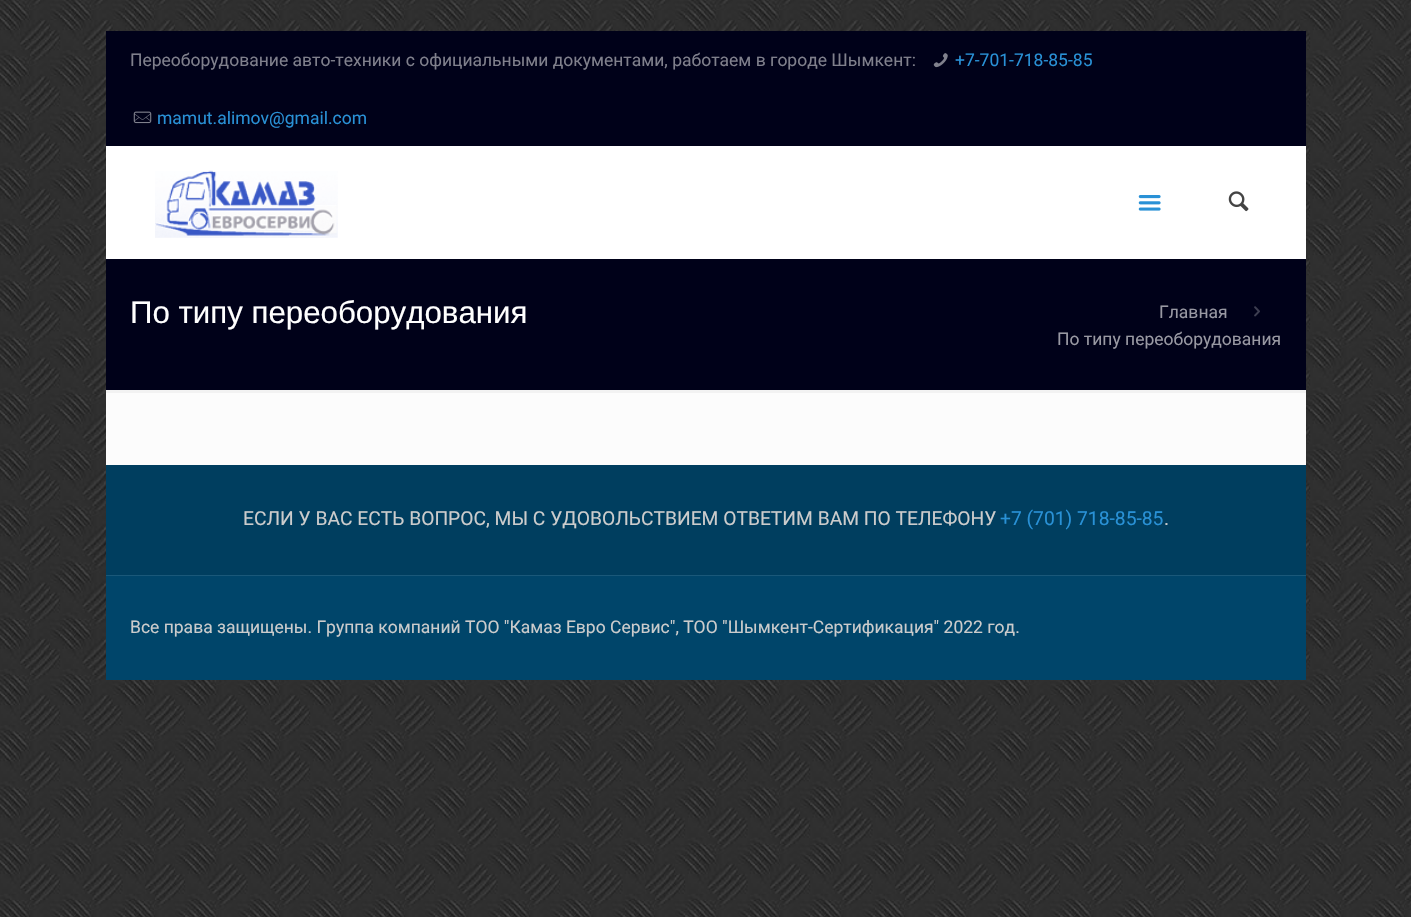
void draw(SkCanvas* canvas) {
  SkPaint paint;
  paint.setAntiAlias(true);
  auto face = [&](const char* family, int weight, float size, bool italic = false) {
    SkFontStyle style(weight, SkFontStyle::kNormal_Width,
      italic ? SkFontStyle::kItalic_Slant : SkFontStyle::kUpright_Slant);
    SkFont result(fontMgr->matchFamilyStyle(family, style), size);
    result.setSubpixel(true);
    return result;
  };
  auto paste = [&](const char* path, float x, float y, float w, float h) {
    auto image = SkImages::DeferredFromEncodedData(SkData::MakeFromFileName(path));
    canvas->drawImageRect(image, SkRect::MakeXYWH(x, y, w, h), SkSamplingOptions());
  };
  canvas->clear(0xffffffff);
  paste("img/1.png", 0, 0, 1411, 917);
  paint.setColor(0xfffcfcfc);
  canvas->drawRect(SkRect::MakeXYWH(106, 393, 1200, 72), paint);
  paint.setColor(0xff000119);
  canvas->drawRect(SkRect::MakeXYWH(106, 31, 1200, 359), paint);
  paste("img/2.png", 933, 53, 15, 15);
  paste("img/3.png", 133, 111, 19, 13);
  paint.setColor(0xffffffff);
  canvas->drawRect(SkRect::MakeXYWH(106, 146, 1200, 113), paint);
  paste("img/4.png", 155, 170, 183, 68);
  paste("img/5.png", 1138, 195, 23, 16);
  paste("img/6.png", 1228, 191, 21, 21);
  paste("img/7.png", 1254, 306, 6, 11);
  {
    const struct { float x, y, w, h; SkColor color; } items[] = {
      {106, 390, 1200, 3, 0xfff2f2f2},
      {106, 576, 1200, 104, 0xff00456a},
      {106, 465, 1200, 110, 0xff003e5f},
      {106, 575, 1200, 1, 0xff1a5879},
    };
    for (auto [x, y, w, h, color] : items) {
      paint.setColor(color);
      canvas->drawRect(SkRect::MakeXYWH(x, y, w, h), paint);
    }
  }
  auto f0 = face("Roboto", 400, 17.5f);
  paint.setColor(0xff80808c);
  canvas->drawString("Переоборудование авто-техники с официальными документами, работаем в городе Шымкент:", 130, 66, f0, paint);
  paint.setColor(0xff2991d6);
  canvas->drawString("+7-701-718-85-85", 955, 66, f0, paint);
  canvas->drawString("mamut.alimov@gmail.com", 157, 124, f0, paint);
  auto f1 = face("Liberation Sans", 400, 31.25f);
  paint.setColor(0xffffffff);
  canvas->drawString("По типу переоборудования", 130, 323, f1, paint);
  paint.setColor(0xff9999a3);
  canvas->drawString("Главная", 1159, 318, f0, paint);
  canvas->drawString("По типу переоборудования", 1057, 345, f0, paint);
  auto f2 = face("Roboto", 400, 19.25f);
  paint.setColor(0xffcccccc);
  canvas->drawString("ЕСЛИ У ВАС ЕСТЬ ВОПРОС, МЫ С УДОВОЛЬСТВИЕМ ОТВЕТИМ ВАМ ПО ТЕЛЕФОНУ", 243, 525, f2, paint);
  paint.setColor(0xff2991d6);
  canvas->drawString("+7 (701) 718-85-85", 1000, 525, f2, paint);
  paint.setColor(0xffcccccc);
  canvas->drawString(".", 1164, 525, f2, paint);
  canvas->drawString("Все права защищены. Группа компаний ТОО \"Камаз Евро Сервис\", ТОО \"Шымкент-Сертификация\" 2022 год.", 130, 633, f0, paint);
}
